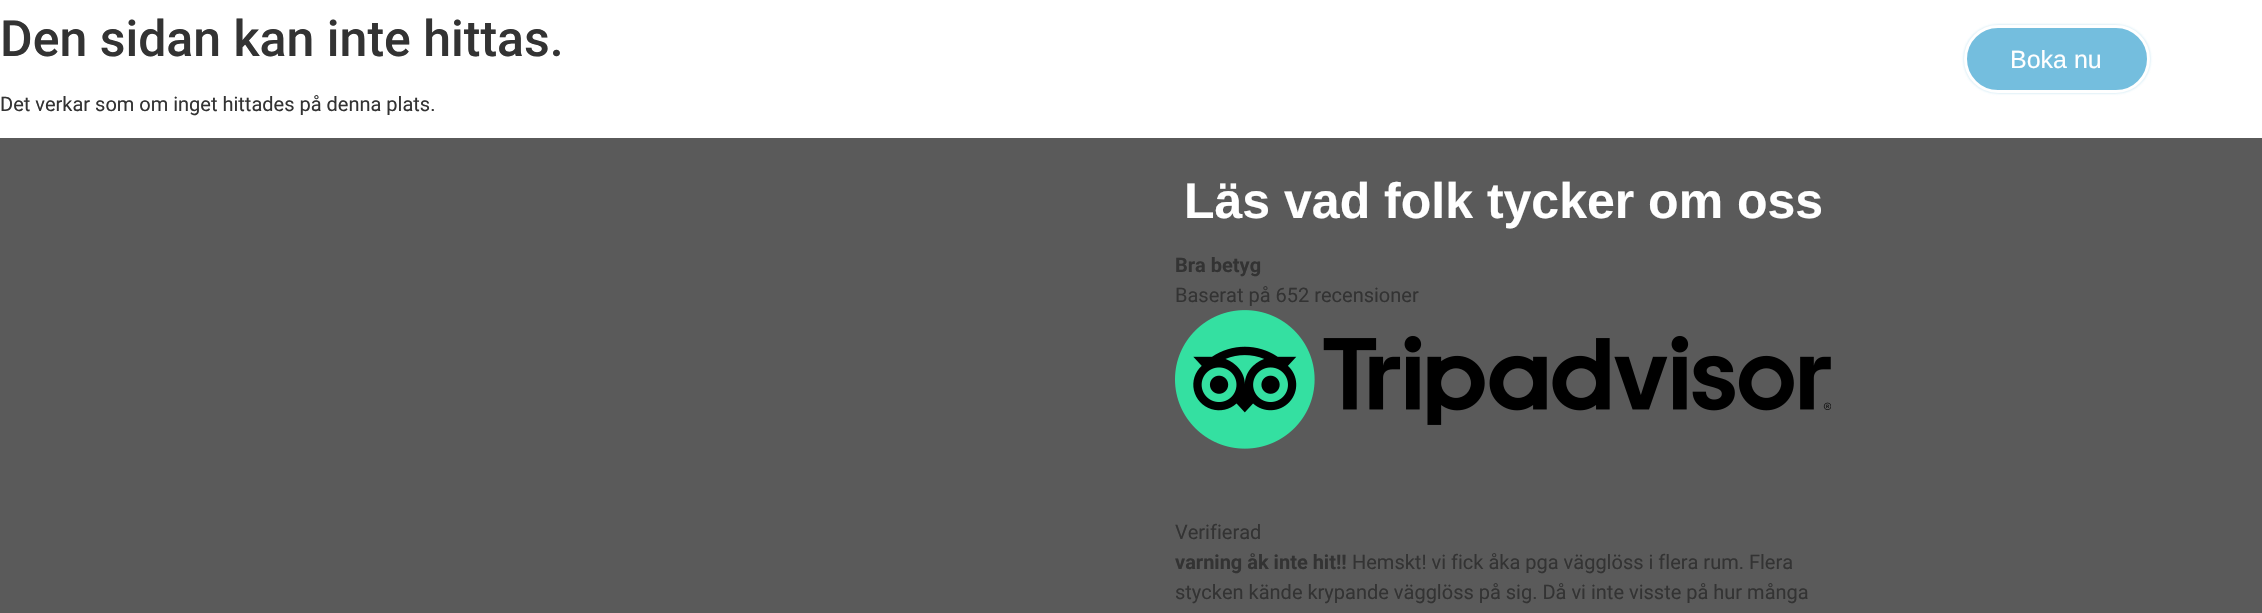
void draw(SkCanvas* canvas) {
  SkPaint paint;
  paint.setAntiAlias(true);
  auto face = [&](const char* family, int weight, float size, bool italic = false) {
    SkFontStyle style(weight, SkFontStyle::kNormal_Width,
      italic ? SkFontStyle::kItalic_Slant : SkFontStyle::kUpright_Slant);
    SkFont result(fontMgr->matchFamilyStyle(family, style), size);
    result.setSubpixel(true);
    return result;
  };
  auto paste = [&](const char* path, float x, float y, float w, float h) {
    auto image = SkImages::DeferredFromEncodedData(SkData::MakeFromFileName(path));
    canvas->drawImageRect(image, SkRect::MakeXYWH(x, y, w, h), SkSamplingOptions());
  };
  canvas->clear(0xffffffff);
  paint.setColor(0x3874bede);
  paint.setMaskFilter(SkMaskFilter::MakeBlur(kNormal_SkBlurStyle, 1));
  canvas->drawRoundRect(SkRect::MakeXYWH(1963, 24, 188, 70), 35, 35, paint);
  paint.setMaskFilter(nullptr);
  paint.setColor(0xff74bede);
  canvas->drawRoundRect(SkRect::MakeXYWH(1965.5f, 26.5f, 183, 65), 32.5f, 32.5f, paint);
  paint.setStroke(true);
  paint.setStrokeWidth(3);
  paint.setColor(0xffffffff);
  canvas->drawRoundRect(SkRect::MakeXYWH(1965.5f, 26.5f, 183, 65), 32.5f, 32.5f, paint);
  paint.setStroke(false);
  paint.setColor(0xff5a5a5a);
  canvas->drawRect(SkRect::MakeXYWH(0, 138, 2262, 475), paint);
  paste("img/1.png", 1175, 310, 656, 139);
  auto f0 = face("Roboto", 500, 50);
  paint.setColor(0xff333333);
  canvas->drawString("Den sidan kan inte hittas.", 0, 56, f0, paint);
  auto f1 = face("Roboto", 400, 20);
  canvas->drawString("Det verkar som om inget hittades på denna plats.", 0, 111, f1, paint);
  auto f2 = face("Liberation Sans", 400, 25);
  paint.setColor(0xffffffff);
  canvas->drawString("Boka nu", 2010, 68, f2, paint);
  auto f3 = face("Liberation Sans", 700, 50);
  canvas->drawString("Läs vad folk tycker om oss", 1184, 218, f3, paint);
  auto f4 = face("Roboto", 700, 20);
  paint.setColor(0xff333333);
  canvas->drawString("Bra betyg", 1175, 272, f4, paint);
  canvas->drawString("Baserat på 652 recensioner", 1175, 302, f1, paint);
  canvas->drawString("Verifierad", 1175, 539, f1, paint);
  canvas->drawString("varning åk inte hit!!", 1175, 569, f4, paint);
  canvas->drawString("Hemskt! vi fick åka pga vägglöss i flera rum. Flera", 1352, 569, f1, paint);
  canvas->drawString("stycken kände krypande vägglöss på sig. Då vi inte visste på hur många", 1175, 599, f1, paint);
}
